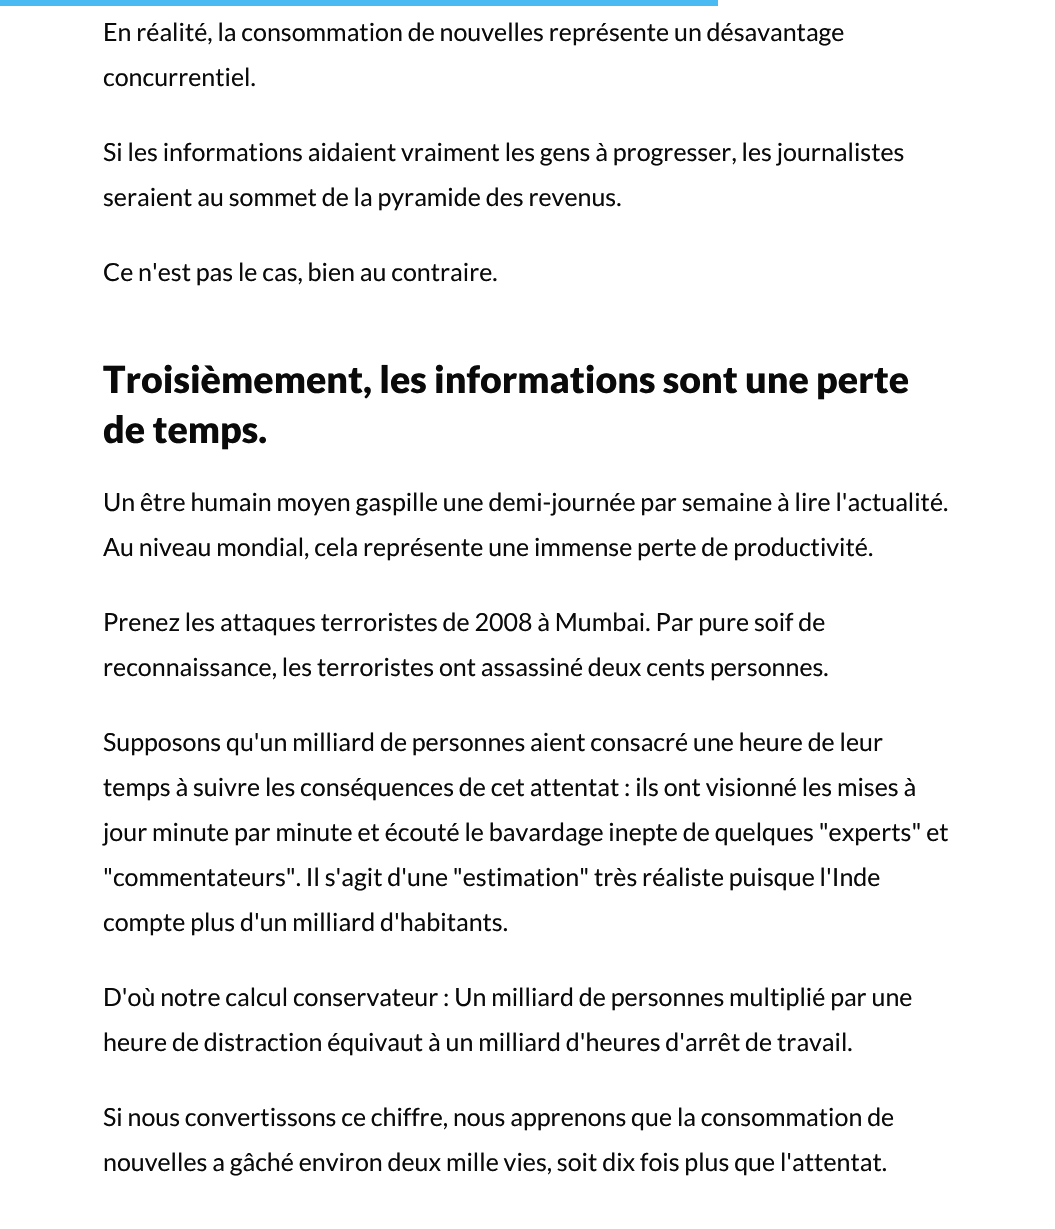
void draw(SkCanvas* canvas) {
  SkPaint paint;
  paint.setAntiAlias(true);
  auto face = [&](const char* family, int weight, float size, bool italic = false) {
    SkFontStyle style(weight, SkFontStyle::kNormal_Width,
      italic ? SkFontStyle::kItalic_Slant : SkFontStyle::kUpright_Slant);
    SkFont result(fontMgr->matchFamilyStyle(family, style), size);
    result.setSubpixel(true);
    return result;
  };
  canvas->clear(0xffffffff);
  paint.setColor(0xff49baf2);
  canvas->drawRect(SkRect::MakeXYWH(0, 0, 718, 6), paint);
  auto f0 = face("Lato", 400, 25);
  paint.setColor(0xff0a0a0a);
  {
    const struct { const char* s; float x, y; } items[] = {
      {"En réalité, la consommation de nouvelles représente un désavantage", 103, 41},
      {"concurrentiel.", 103, 86},
      {"Si les informations aidaient vraiment les gens à progresser, les journalistes", 103, 161},
      {"seraient au sommet de la pyramide des revenus.", 103, 206},
      {"Ce n'est pas le cas, bien au contraire.", 103, 281},
    };
    for (auto [s, x, y] : items) {
      canvas->drawString(s, x, y, f0, paint);
    }
  }
  auto f1 = face("Lato", 900, 37.5f);
  canvas->drawString("Troisièmement, les informations sont une perte", 103, 393, f1, paint);
  canvas->drawString("de temps.", 103, 443, f1, paint);
  {
    const struct { const char* s; float x, y; } items[] = {
      {"Un être humain moyen gaspille une demi-journée par semaine à lire l'actualité.", 103, 511},
      {"Au niveau mondial, cela représente une immense perte de productivité.", 103, 556},
      {"Prenez les attaques terroristes de 2008 à Mumbai. Par pure soif de", 103, 631},
      {"reconnaissance, les terroristes ont assassiné deux cents personnes.", 103, 676},
      {"Supposons qu'un milliard de personnes aient consacré une heure de leur", 103, 751},
      {"temps à suivre les conséquences de cet attentat : ils ont visionné les mises à", 103, 796},
      {"jour minute par minute et écouté le bavardage inepte de quelques \"experts\" et", 103, 841},
      {"\"commentateurs\". Il s'agit d'une \"estimation\" très réaliste puisque l'Inde", 103, 886},
      {"compte plus d'un milliard d'habitants.", 103, 931},
      {"D'où notre calcul conservateur : Un milliard de personnes multiplié par une", 103, 1006},
      {"heure de distraction équivaut à un milliard d'heures d'arrêt de travail.", 103, 1051},
      {"Si nous convertissons ce chiffre, nous apprenons que la consommation de", 103, 1126},
      {"nouvelles a gâché environ deux mille vies, soit dix fois plus que l'attentat.", 103, 1171},
    };
    for (auto [s, x, y] : items) {
      canvas->drawString(s, x, y, f0, paint);
    }
  }
}
